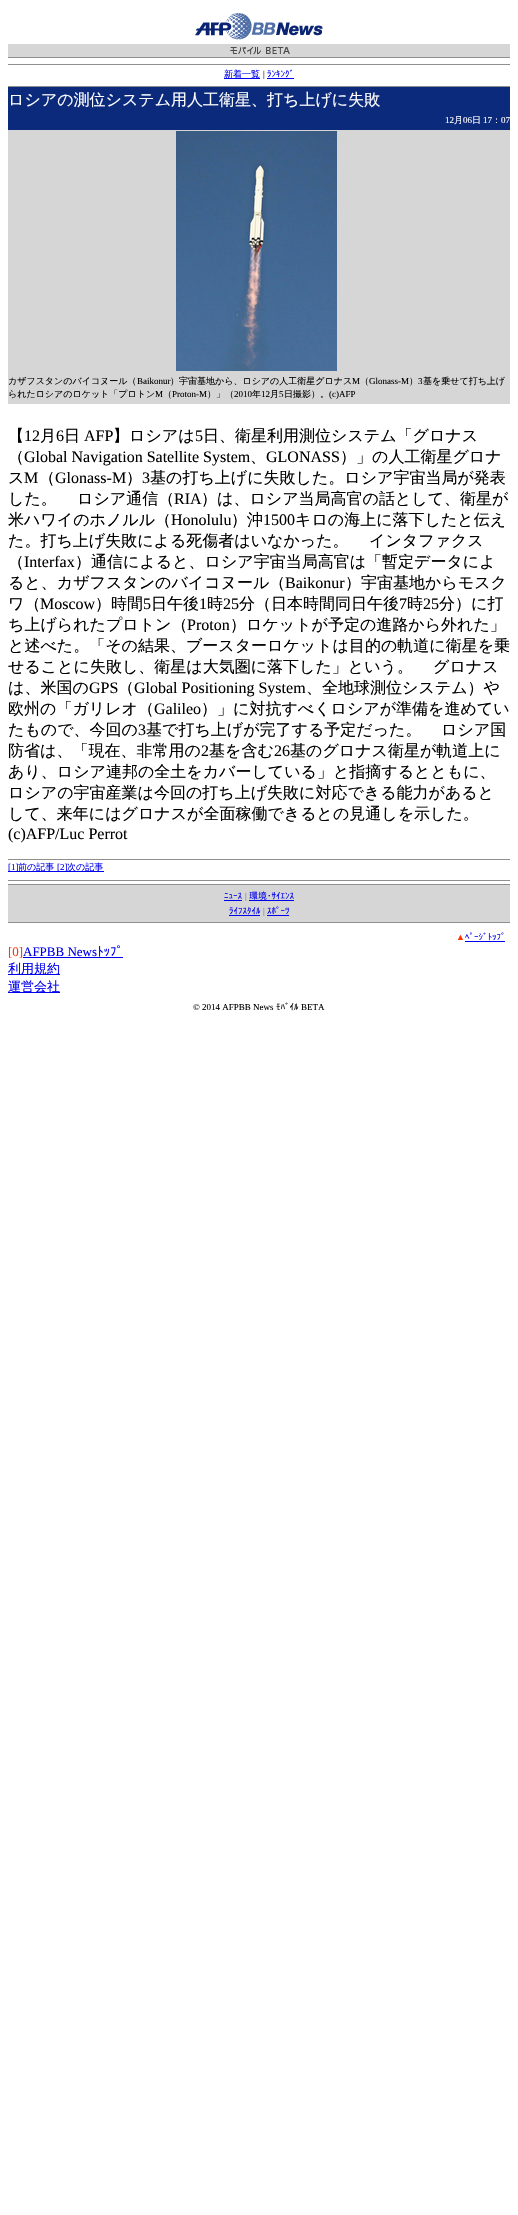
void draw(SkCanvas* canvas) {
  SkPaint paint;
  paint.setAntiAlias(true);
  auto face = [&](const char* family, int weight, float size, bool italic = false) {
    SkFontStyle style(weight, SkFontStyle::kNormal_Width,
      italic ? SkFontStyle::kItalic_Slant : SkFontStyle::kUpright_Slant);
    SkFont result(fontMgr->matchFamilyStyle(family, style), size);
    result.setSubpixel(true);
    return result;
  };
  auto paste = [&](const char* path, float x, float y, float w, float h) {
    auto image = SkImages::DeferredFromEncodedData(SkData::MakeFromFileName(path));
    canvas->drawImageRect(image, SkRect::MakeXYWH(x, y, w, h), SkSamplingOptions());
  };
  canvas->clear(0xffffffff);
  paste("img/1.png", 195, 13, 128, 27);
  paint.setColor(0xffd6d6d6);
  canvas->drawRect(SkRect::MakeXYWH(8, 44, 502, 13), paint);
  paste("img/2.png", 230, 46, 60, 9);
  {
    const struct { float x, y, w, h; SkColor color; } items[] = {
      {8, 57, 502, 1, 0xff8f8f8f},
      {8, 64, 502, 1, 0xff8f8f8f},
      {224, 78, 36, 1, 0xff0000ee},
      {267, 78, 27, 1, 0xff0000ee},
      {8, 86, 502, 1, 0xff8f8f8f},
      {8, 87, 502, 43, 0xff0c2a7c},
      {8, 130, 502, 1, 0xffd5d5d5},
      {8, 131, 502, 273, 0xffd6d6d6},
    };
    for (auto [x, y, w, h, color] : items) {
      paint.setColor(color);
      canvas->drawRect(SkRect::MakeXYWH(x, y, w, h), paint);
    }
  }
  paste("img/3.png", 176, 131, 161, 240);
  {
    const struct { float x, y, w, h; SkColor color; } items[] = {
      {8, 859, 502, 1, 0xff8f8f8f},
      {8, 871, 96, 1, 0xff0000ee},
      {8, 880, 502, 1, 0xff8f8f8f},
      {8, 884, 502, 1, 0xff8f8f8f},
      {8, 885, 502, 37, 0xffd6d6d6},
      {224, 900, 18, 1, 0xff0000ee},
      {249, 900, 45, 1, 0xff0000ee},
      {229, 915, 31, 1, 0xff0000ee},
      {267, 915, 22, 1, 0xff0000ee},
      {8, 922, 502, 1, 0xff8f8f8f},
      {465, 941, 40, 1, 0xff0000ee},
      {23, 957, 100, 1, 0xff0000ee},
      {8, 974, 52, 1, 0xff0000ee},
      {8, 992, 52, 1, 0xff0000ee},
    };
    for (auto [x, y, w, h, color] : items) {
      paint.setColor(color);
      canvas->drawRect(SkRect::MakeXYWH(x, y, w, h), paint);
    }
  }
  auto f0 = face("WenQuanYi Zen Hei", 500, 9);
  canvas->drawString("新着一覧", 224, 77, f0, paint);
  auto f1 = face("Liberation Serif", 400, 9);
  paint.setColor(0xff000000);
  canvas->drawString("|", 263, 77, f1, paint);
  auto f2 = face("IPAPGothic", 400, 9);
  paint.setColor(0xff0000ee);
  canvas->drawString("ﾗﾝｷﾝｸﾞ", 267, 77, f2, paint);
  auto f3 = face("WenQuanYi Zen Hei", 500, 16);
  paint.setColor(0xffffffff);
  canvas->drawString("ロシアの測位システム用人工衛星、打ち上げに失敗", 8, 105, f3, paint);
  canvas->drawString("12", 445, 123, f1, paint);
  canvas->drawString("月", 454, 123, f0, paint);
  canvas->drawString("06", 463, 123, f1, paint);
  canvas->drawString("日", 472, 123, f0, paint);
  canvas->drawString("17", 483, 123, f1, paint);
  canvas->drawString("：", 492, 123, f0, paint);
  canvas->drawString("07", 501, 123, f1, paint);
  paint.setColor(0xff000000);
  canvas->drawString("カザフスタンのバイコヌール（", 8, 384, f0, paint);
  canvas->drawString("Baikonur", 137, 384, f1, paint);
  canvas->drawString("）宇宙基地から、ロシアの人工衛星グロナス", 170, 384, f0, paint);
  canvas->drawString("M", 352, 384, f1, paint);
  canvas->drawString("（", 360, 384, f0, paint);
  canvas->drawString("Glonass-M", 369, 384, f1, paint);
  canvas->drawString("）", 409, 384, f0, paint);
  canvas->drawString("3", 418, 384, f1, paint);
  canvas->drawString("基を乗せて打ち上げ", 423, 384, f0, paint);
  canvas->drawString("られたロシアのロケット「プロトン", 8, 397, f0, paint);
  canvas->drawString("M", 155, 397, f1, paint);
  canvas->drawString("（", 163, 397, f0, paint);
  canvas->drawString("Proton-M", 172, 397, f1, paint);
  canvas->drawString("）」（", 207, 397, f0, paint);
  canvas->drawString("2010", 234, 397, f1, paint);
  canvas->drawString("年", 252, 397, f0, paint);
  canvas->drawString("12", 261, 397, f1, paint);
  canvas->drawString("月", 270, 397, f0, paint);
  canvas->drawString("5", 279, 397, f1, paint);
  canvas->drawString("日撮影）。", 284, 397, f0, paint);
  canvas->drawString("(c)AFP", 329, 397, f1, paint);
  canvas->drawString("【", 8, 441, f3, paint);
  auto f4 = face("Liberation Serif", 400, 16);
  canvas->drawString("12", 24, 441, f4, paint);
  canvas->drawString("月", 40, 441, f3, paint);
  canvas->drawString("6", 56, 441, f4, paint);
  canvas->drawString("日", 64, 441, f3, paint);
  canvas->drawString("AFP", 84, 441, f4, paint);
  canvas->drawString("】ロシアは", 113, 441, f3, paint);
  canvas->drawString("5", 195, 441, f4, paint);
  canvas->drawString("日、衛星利用測位システム「グロナス", 203, 441, f3, paint);
  canvas->drawString("（", 8, 462, f3, paint);
  canvas->drawString("Global Navigation Satellite System", 24, 462, f4, paint);
  canvas->drawString("、", 250, 462, f3, paint);
  canvas->drawString("GLONASS", 266, 462, f4, paint);
  canvas->drawString("）」の人工衛星グロナ", 340, 462, f3, paint);
  canvas->drawString("ス", 8, 483, f3, paint);
  canvas->drawString("M", 24, 483, f4, paint);
  canvas->drawString("（", 39, 483, f3, paint);
  canvas->drawString("Glonass-M", 55, 483, f4, paint);
  canvas->drawString("）", 126, 483, f3, paint);
  canvas->drawString("3", 142, 483, f4, paint);
  {
    const struct { const char* s; float x, y; } items[] = {
      {"基の打ち上げに失敗した。ロシア宇宙当局が発表", 150, 483},
      {"した。", 8, 504},
      {"ロシア通信（", 77, 504},
    };
    for (auto [s, x, y] : items) {
      canvas->drawString(s, x, y, f3, paint);
    }
  }
  canvas->drawString("RIA", 174, 504, f4, paint);
  canvas->drawString("）は、ロシア当局高官の話として、衛星が", 201, 504, f3, paint);
  canvas->drawString("米ハワイのホノルル（", 8, 525, f3, paint);
  canvas->drawString("Honolulu", 171, 525, f4, paint);
  canvas->drawString("）沖", 231, 525, f3, paint);
  canvas->drawString("1500", 263, 525, f4, paint);
  {
    const struct { const char* s; float x, y; } items[] = {
      {"キロの海上に落下したと伝え", 295, 525},
      {"た。打ち上げ失敗による死傷者はいなかった。", 8, 546},
      {"インタファクス", 369, 546},
      {"（", 8, 567},
    };
    for (auto [s, x, y] : items) {
      canvas->drawString(s, x, y, f3, paint);
    }
  }
  canvas->drawString("Interfax", 24, 567, f4, paint);
  canvas->drawString("）通信によると、ロシア宇宙当局高官は「暫定データによ", 75, 567, f3, paint);
  canvas->drawString("ると、カザフスタンのバイコヌール（", 8, 588, f3, paint);
  canvas->drawString("Baikonur", 285, 588, f4, paint);
  canvas->drawString("）宇宙基地からモスク", 345, 588, f3, paint);
  canvas->drawString("ワ（", 8, 609, f3, paint);
  canvas->drawString("Moscow", 40, 609, f4, paint);
  canvas->drawString("）時間", 95, 609, f3, paint);
  canvas->drawString("5", 143, 609, f4, paint);
  canvas->drawString("日午後", 151, 609, f3, paint);
  canvas->drawString("1", 199, 609, f4, paint);
  canvas->drawString("時", 207, 609, f3, paint);
  canvas->drawString("25", 223, 609, f4, paint);
  canvas->drawString("分（日本時間同日午後", 239, 609, f3, paint);
  canvas->drawString("7", 399, 609, f4, paint);
  canvas->drawString("時", 407, 609, f3, paint);
  canvas->drawString("25", 423, 609, f4, paint);
  canvas->drawString("分）に打", 439, 609, f3, paint);
  canvas->drawString("ち上げられたプロトン（", 8, 630, f3, paint);
  canvas->drawString("Proton", 187, 630, f4, paint);
  {
    const struct { const char* s; float x, y; } items[] = {
      {"）ロケットが予定の進路から外れた」", 230, 630},
      {"と述べた。「その結果、ブースターロケットは目的の軌道に衛星を乗", 8, 651},
      {"せることに失敗し、衛星は大気圏に落下した」という。", 8, 672},
      {"グロナス", 433, 672},
      {"は、米国の", 8, 693},
    };
    for (auto [s, x, y] : items) {
      canvas->drawString(s, x, y, f3, paint);
    }
  }
  canvas->drawString("GPS", 89, 693, f4, paint);
  canvas->drawString("（", 118, 693, f3, paint);
  canvas->drawString("Global Positioning System", 134, 693, f4, paint);
  canvas->drawString("、全地球測位システム）や", 306, 693, f3, paint);
  canvas->drawString("欧州の「ガリレオ（", 8, 714, f3, paint);
  canvas->drawString("Galileo", 154, 714, f4, paint);
  canvas->drawString("）」に対抗すべくロシアが準備を進めてい", 201, 714, f3, paint);
  canvas->drawString("たもので、今回の", 8, 735, f3, paint);
  canvas->drawString("3", 138, 735, f4, paint);
  {
    const struct { const char* s; float x, y; } items[] = {
      {"基で打ち上げが完了する予定だった。", 146, 735},
      {"ロシア国", 441, 735},
      {"防省は、「現在、非常用の", 8, 756},
    };
    for (auto [s, x, y] : items) {
      canvas->drawString(s, x, y, f3, paint);
    }
  }
  canvas->drawString("2", 201, 756, f4, paint);
  canvas->drawString("基を含む", 209, 756, f3, paint);
  canvas->drawString("26", 274, 756, f4, paint);
  {
    const struct { const char* s; float x, y; } items[] = {
      {"基のグロナス衛星が軌道上に", 290, 756},
      {"あり、ロシア連邦の全土をカバーしている」と指摘するとともに、", 8, 777},
      {"ロシアの宇宙産業は今回の打ち上げ失敗に対応できる能力があると", 8, 798},
      {"して、来年にはグロナスが全面稼働できるとの見通しを示した。", 8, 819},
    };
    for (auto [s, x, y] : items) {
      canvas->drawString(s, x, y, f3, paint);
    }
  }
  canvas->drawString("(c)AFP/Luc Perrot", 8, 839, f4, paint);
  paint.setColor(0xff0000ee);
  canvas->drawString("[1]", 8, 870, f1, paint);
  canvas->drawString("前の記事", 18, 870, f0, paint);
  canvas->drawString("[2]", 57, 870, f1, paint);
  canvas->drawString("次の記事", 67, 870, f0, paint);
  canvas->drawString("ﾆｭｰｽ", 224, 899, f2, paint);
  paint.setColor(0xff777777);
  canvas->drawString("|", 245, 899, f1, paint);
  paint.setColor(0xff0000ee);
  canvas->drawString("環境･ｻｲｴﾝｽ", 249, 899, f2, paint);
  canvas->drawString("ﾗｲﾌｽﾀｲﾙ", 229, 914, f2, paint);
  paint.setColor(0xff777777);
  canvas->drawString("|", 263, 914, f1, paint);
  paint.setColor(0xff0000ee);
  canvas->drawString("ｽﾎﾟｰﾂ", 267, 914, f2, paint);
  paint.setColor(0xffff3300);
  canvas->drawString("▲", 456, 940, f1, paint);
  paint.setColor(0xff0000ee);
  canvas->drawString("ﾍﾟｰｼﾞﾄｯﾌﾟ", 465, 940, f2, paint);
  auto f5 = face("Liberation Serif", 400, 13);
  paint.setColor(0xffff3300);
  canvas->drawString("[0]", 8, 956, f5, paint);
  paint.setColor(0xff0000ee);
  canvas->drawString("AFPBB News", 23, 956, f5, paint);
  auto f6 = face("IPAPGothic", 400, 13);
  canvas->drawString("ﾄｯﾌﾟ", 97, 956, f6, paint);
  auto f7 = face("WenQuanYi Zen Hei", 500, 13);
  canvas->drawString("利用規約", 8, 973, f7, paint);
  canvas->drawString("運営会社", 8, 991, f7, paint);
  paint.setColor(0xff000000);
  canvas->drawString("© 2014 AFPBB News", 193, 1010, f1, paint);
  canvas->drawString("ﾓﾊﾞｲﾙ", 276, 1010, f2, paint);
  canvas->drawString("BETA", 301, 1010, f1, paint);
}
